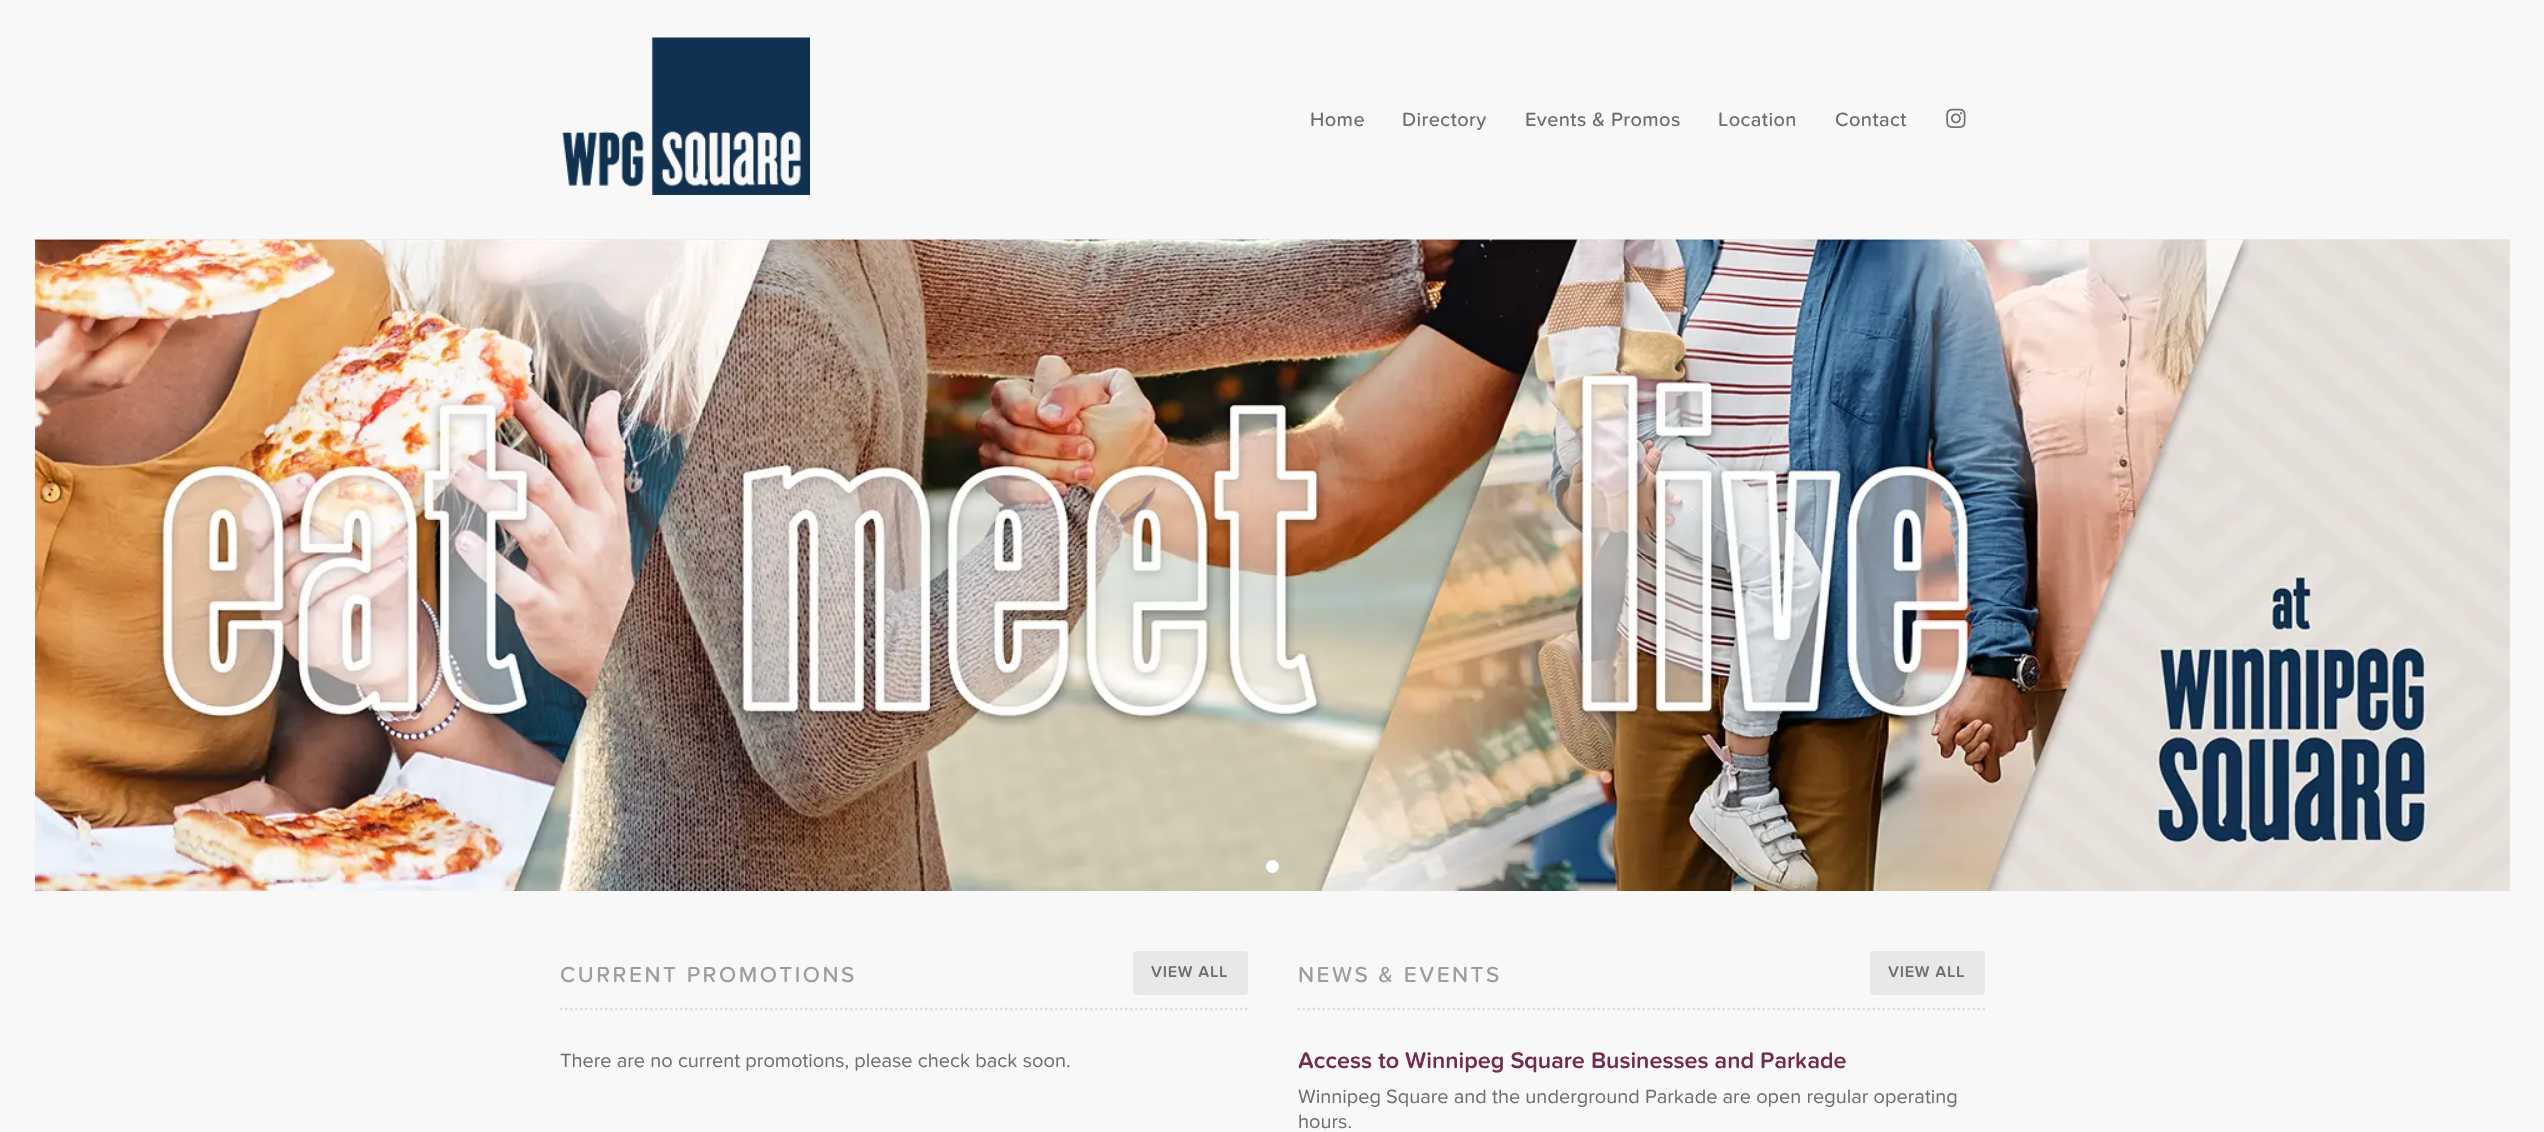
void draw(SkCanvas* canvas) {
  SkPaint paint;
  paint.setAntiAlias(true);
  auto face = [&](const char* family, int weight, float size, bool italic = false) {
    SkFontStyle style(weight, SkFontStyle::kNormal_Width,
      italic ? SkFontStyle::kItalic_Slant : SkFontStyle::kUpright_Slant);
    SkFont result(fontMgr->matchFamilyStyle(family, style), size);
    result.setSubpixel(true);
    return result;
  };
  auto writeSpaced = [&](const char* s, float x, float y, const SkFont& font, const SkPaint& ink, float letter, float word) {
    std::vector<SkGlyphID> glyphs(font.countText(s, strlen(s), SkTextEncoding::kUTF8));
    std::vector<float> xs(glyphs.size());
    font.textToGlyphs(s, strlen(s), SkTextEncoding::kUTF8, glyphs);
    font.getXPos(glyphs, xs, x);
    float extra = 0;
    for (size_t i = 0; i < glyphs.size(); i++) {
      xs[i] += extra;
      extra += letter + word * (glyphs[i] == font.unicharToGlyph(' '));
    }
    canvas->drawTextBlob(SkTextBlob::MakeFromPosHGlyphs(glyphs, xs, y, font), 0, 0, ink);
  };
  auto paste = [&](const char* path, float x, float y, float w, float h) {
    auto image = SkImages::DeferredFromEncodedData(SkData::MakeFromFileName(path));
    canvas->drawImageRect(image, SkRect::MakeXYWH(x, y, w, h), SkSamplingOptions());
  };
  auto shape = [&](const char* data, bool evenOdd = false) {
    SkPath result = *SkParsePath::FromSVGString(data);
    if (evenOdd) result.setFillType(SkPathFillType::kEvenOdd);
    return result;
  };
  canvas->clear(0xfff8f8f8);
  paste("img/1.png", 562, 37, 248, 158);
  paste("img/2.png", 1946, 108, 20, 20);
  paste("img/3.png", 35, 239, 2475, 652);
  paint.setColor(0xffffffff);
  canvas->drawCircle(1272.5f, 866.5f, 5, paint);
  paint.setStroke(true);
  paint.setStrokeWidth(3);
  canvas->drawCircle(1272.5f, 866.5f, 5, paint);
  paint.setStrokeWidth(2.5f);
  paint.setColor(0xffdfdfdf);
  paint.setPathEffect(SkDashPathEffect::Make({{2.5f, 2.5f}}, 0));
  canvas->drawPath(shape("M560 1009H1247.5"), paint);
  paint.setPathEffect(nullptr);
  paint.setStroke(false);
  paint.setColor(0xffe8e8e8);
  canvas->drawRoundRect(SkRect::MakeXYWH(1133, 951, 115, 44), 4, 4, paint);
  paint.setStroke(true);
  paint.setColor(0xffdfdfdf);
  paint.setPathEffect(SkDashPathEffect::Make({{2.5f, 2.5f}}, 0));
  canvas->drawPath(shape("M1297.5 1009H1985"), paint);
  paint.setPathEffect(nullptr);
  paint.setStroke(false);
  paint.setColor(0xffe8e8e8);
  canvas->drawRoundRect(SkRect::MakeXYWH(1870, 951, 115, 44), 4, 4, paint);
  auto f0 = face("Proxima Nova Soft", 500, 20);
  paint.setColor(0xff6f6f6f);
  {
    const struct { const char* s; float x, y; } items[] = {
      {"Home", 1310, 126},
      {"Directory", 1402, 126},
      {"Events & Promos", 1525, 126},
      {"Location", 1718, 126},
      {"Contact", 1835, 126},
    };
    for (auto [s, x, y] : items) {
      writeSpaced(s, x, y, f0, paint, 0.4f, 0);
    }
  }
  auto f1 = face("Proxima Nova Soft", 500, 22.5f);
  paint.setColor(0xff9d9d9d);
  writeSpaced("CURRENT PROMOTIONS", 560, 982, f1, paint, 2.5f, 0);
  auto f2 = face("Proxima Nova Soft", 600, 16.25f);
  paint.setColor(0xff6f6f6f);
  writeSpaced("VIEW ALL", 1151, 977, f2, paint, 0.75f, 0);
  auto f3 = face("Proxima Nova Soft", 400, 20);
  canvas->drawString("There are no current promotions, please check back soon.", 560, 1067, f3, paint);
  paint.setColor(0xff9d9d9d);
  writeSpaced("NEWS & EVENTS", 1298, 982, f1, paint, 2.5f, 0);
  paint.setColor(0xff6f6f6f);
  writeSpaced("VIEW ALL", 1888, 977, f2, paint, 0.75f, 0);
  auto f4 = face("Proxima Nova Soft", 600, 23.4f);
  paint.setColor(0xff732c4f);
  canvas->drawString("Access to Winnipeg Square Businesses and Parkade", 1298, 1068, f4, paint);
  paint.setColor(0xff6f6f6f);
  canvas->drawString("Winnipeg Square and the underground Parkade are open regular operating", 1298, 1103, f3, paint);
  canvas->drawString("hours.", 1298, 1128, f3, paint);
}
